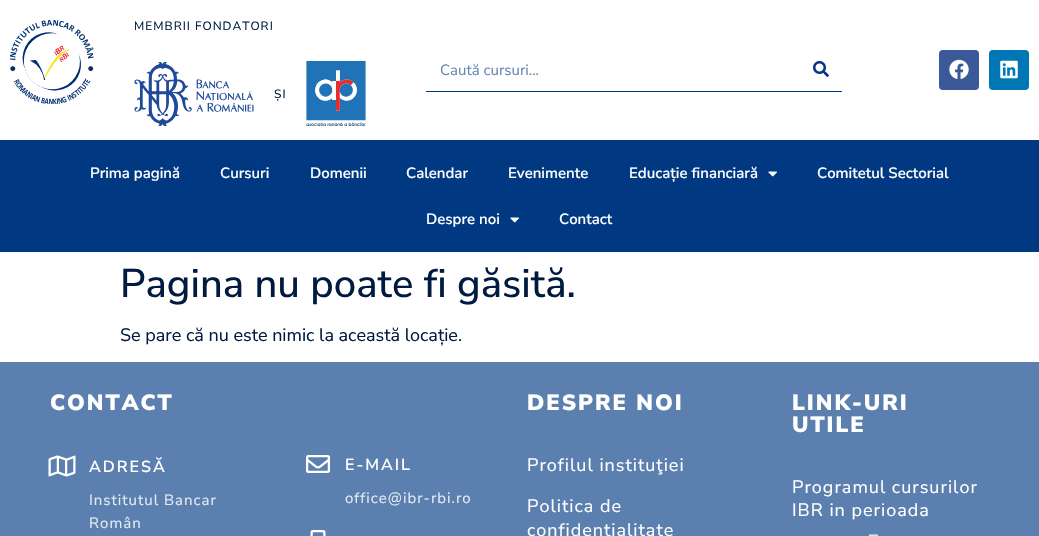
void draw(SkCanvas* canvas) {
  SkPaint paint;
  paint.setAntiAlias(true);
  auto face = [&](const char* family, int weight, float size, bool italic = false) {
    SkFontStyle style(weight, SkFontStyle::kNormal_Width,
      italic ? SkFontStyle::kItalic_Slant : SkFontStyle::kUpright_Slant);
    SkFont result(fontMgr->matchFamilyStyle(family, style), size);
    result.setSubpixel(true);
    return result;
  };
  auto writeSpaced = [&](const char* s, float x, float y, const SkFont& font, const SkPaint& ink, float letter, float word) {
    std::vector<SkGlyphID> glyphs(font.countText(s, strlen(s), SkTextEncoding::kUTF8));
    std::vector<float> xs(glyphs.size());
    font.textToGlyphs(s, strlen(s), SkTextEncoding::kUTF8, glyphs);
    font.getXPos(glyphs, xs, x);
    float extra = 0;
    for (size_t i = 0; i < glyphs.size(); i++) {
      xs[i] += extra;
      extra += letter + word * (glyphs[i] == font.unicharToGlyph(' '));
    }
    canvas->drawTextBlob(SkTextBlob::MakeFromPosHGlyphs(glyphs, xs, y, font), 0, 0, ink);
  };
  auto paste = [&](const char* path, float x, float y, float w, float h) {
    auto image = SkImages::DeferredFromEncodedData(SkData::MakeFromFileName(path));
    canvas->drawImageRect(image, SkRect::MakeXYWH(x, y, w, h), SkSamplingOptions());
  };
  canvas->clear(0xffffffff);
  paste("img/1.png", 10, 20, 84, 84);
  paste("img/2.png", 134, 62, 120, 64);
  paste("img/3.png", 306, 61, 60, 66);
  paint.setColor(0xff003882);
  canvas->drawRect(SkRect::MakeXYWH(426, 91, 416, 1), paint);
  paste("img/4.png", 813, 61, 16, 16);
  paint.setColor(0xff3b5998);
  canvas->drawRoundRect(SkRect::MakeXYWH(939, 50, 40, 40), 4, 4, paint);
  paste("img/5.png", 949, 59, 20, 20);
  paint.setColor(0xff0077b5);
  canvas->drawRoundRect(SkRect::MakeXYWH(989, 50, 40, 40), 4, 4, paint);
  paste("img/6.png", 1000, 60, 18, 19);
  paint.setColor(0xff003882);
  canvas->drawRect(SkRect::MakeXYWH(0, 140, 1039, 112), paint);
  paste("img/7.png", 768, 171, 9, 6);
  paste("img/7.png", 510, 217, 9, 6);
  paint.setColor(0xff5b7faf);
  canvas->drawRect(SkRect::MakeXYWH(0, 362, 1039, 174), paint);
  paste("img/8.png", 48, 455, 28, 22);
  paste("img/9.png", 306, 455, 24, 18);
  paste("img/10.png", 310, 530, 16, 6);
  auto f0 = face("Nunito Sans", 400, 12);
  paint.setColor(0xff001b3f);
  writeSpaced("MEMBRII FONDATORI", 134, 30, f0, paint, 1, 0);
  writeSpaced("ȘI", 274, 98, f0, paint, 1, 0);
  auto f1 = face("Nunito Sans", 400, 15);
  paint.setColor(0xff6688b4);
  canvas->drawString("Caută cursuri...", 440, 75, f1, paint);
  auto f2 = face("Nunito Sans", 600, 15);
  paint.setColor(0xffffffff);
  {
    const struct { const char* s; float x, y; } items[] = {
      {"Prima pagină", 90, 178},
      {"Cursuri", 220, 178},
      {"Domenii", 310, 178},
      {"Calendar", 406, 178},
      {"Evenimente", 508, 178},
      {"Educație financiară", 629, 178},
      {"Comitetul Sectorial", 817, 178},
      {"Despre noi", 426, 224},
      {"Contact", 559, 224},
    };
    for (auto [s, x, y] : items) {
      canvas->drawString(s, x, y, f2, paint);
    }
  }
  auto f3 = face("Nunito Sans", 500, 40);
  paint.setColor(0xff001b3f);
  canvas->drawString("Pagina nu poate fi găsită.", 120, 297, f3, paint);
  auto f4 = face("Nunito Sans", 400, 18);
  canvas->drawString("Se pare că nu este nimic la această locație.", 120, 341, f4, paint);
  auto f5 = face("Nunito Sans", 900, 22);
  paint.setColor(0xffffffff);
  writeSpaced("CONTACT", 50, 410, f5, paint, 2, 0);
  auto f6 = face("Nunito Sans", 600, 16);
  writeSpaced("ADRESĂ", 89, 472, f6, paint, 2, 0);
  paint.setColor(0xffe3e9f1);
  writeSpaced("Institutul Bancar", 89, 505, f1, paint, 1, 0);
  writeSpaced("Român", 89, 528, f1, paint, 1, 0);
  paint.setColor(0xffffffff);
  writeSpaced("E-MAIL", 345, 470, f6, paint, 2, 0);
  paint.setColor(0xffe3e9f1);
  writeSpaced("office@ibr-rbi.ro", 345, 503, f1, paint, 1, 0);
  paint.setColor(0xffffffff);
  writeSpaced("DESPRE NOI", 527, 410, f5, paint, 2, 0);
  {
    const struct { const char* s; float x, y; } items[] = {
      {"Profilul instituţiei", 527, 471},
      {"Politica de", 527, 512},
      {"confidențialitate", 527, 536},
    };
    for (auto [s, x, y] : items) {
      writeSpaced(s, x, y, f4, paint, 1, 0);
    }
  }
  writeSpaced("LINK-URI", 792, 410, f5, paint, 2, 0);
  writeSpaced("UTILE", 792, 432, f5, paint, 2, 0);
  {
    const struct { const char* s; float x, y; } items[] = {
      {"Programul cursurilor", 792, 493},
      {"IBR in perioada", 792, 516},
      {"–", 869, 540},
    };
    for (auto [s, x, y] : items) {
      writeSpaced(s, x, y, f4, paint, 1, 0);
    }
  }
}
